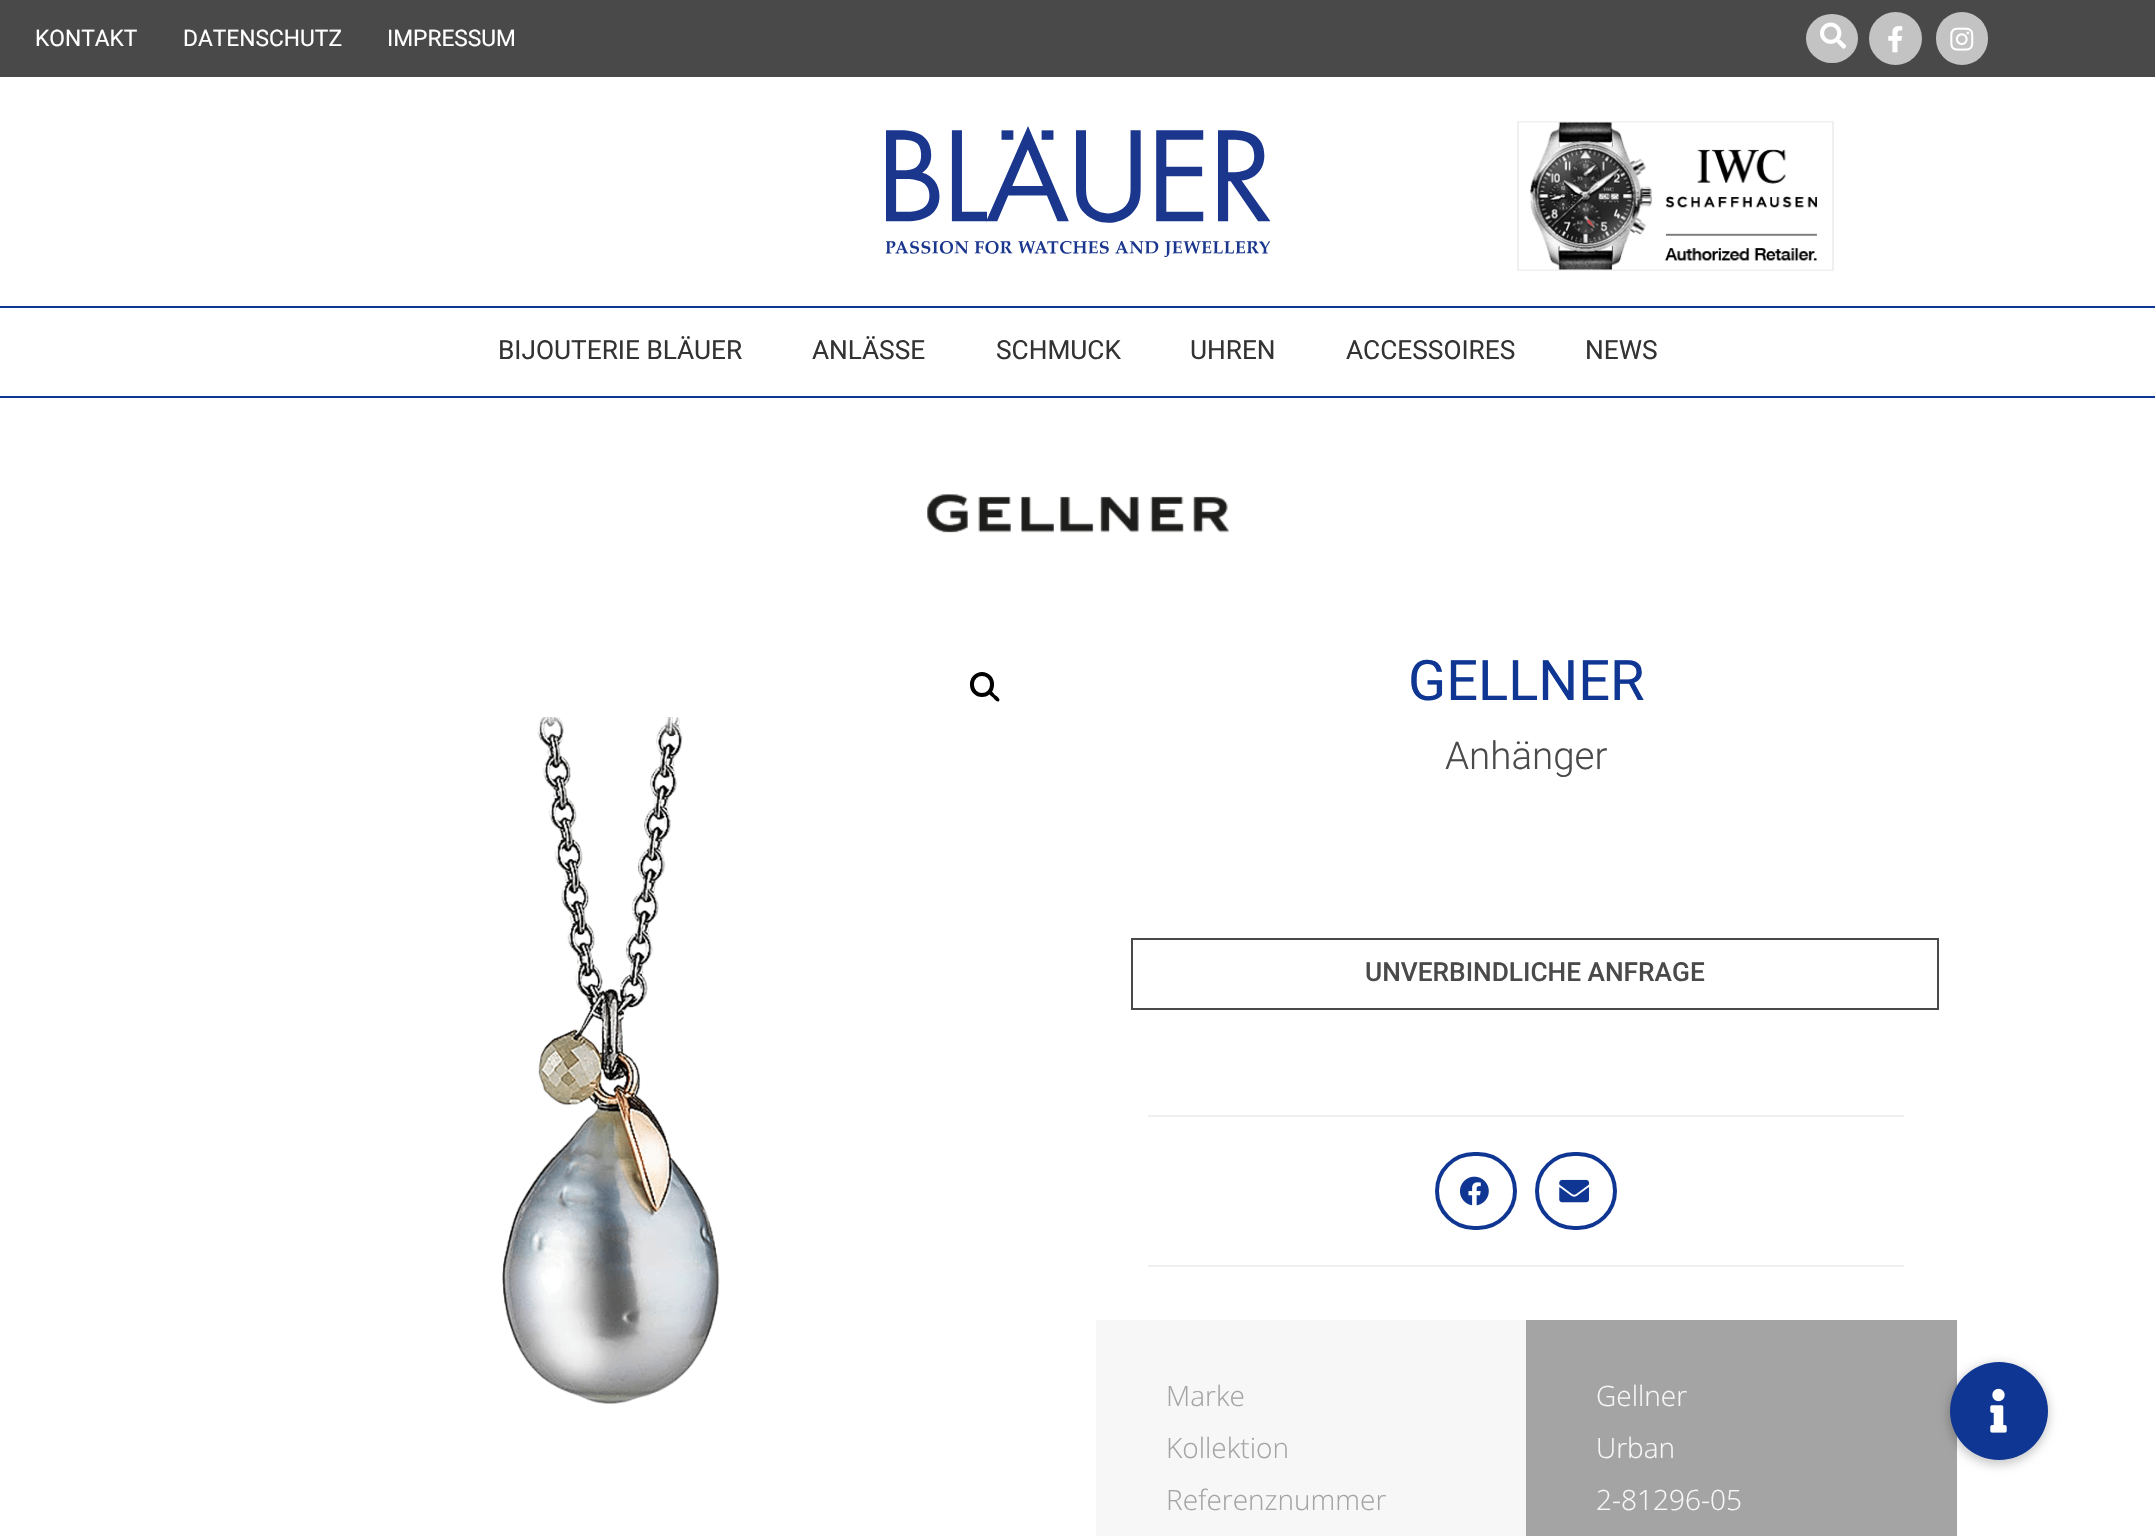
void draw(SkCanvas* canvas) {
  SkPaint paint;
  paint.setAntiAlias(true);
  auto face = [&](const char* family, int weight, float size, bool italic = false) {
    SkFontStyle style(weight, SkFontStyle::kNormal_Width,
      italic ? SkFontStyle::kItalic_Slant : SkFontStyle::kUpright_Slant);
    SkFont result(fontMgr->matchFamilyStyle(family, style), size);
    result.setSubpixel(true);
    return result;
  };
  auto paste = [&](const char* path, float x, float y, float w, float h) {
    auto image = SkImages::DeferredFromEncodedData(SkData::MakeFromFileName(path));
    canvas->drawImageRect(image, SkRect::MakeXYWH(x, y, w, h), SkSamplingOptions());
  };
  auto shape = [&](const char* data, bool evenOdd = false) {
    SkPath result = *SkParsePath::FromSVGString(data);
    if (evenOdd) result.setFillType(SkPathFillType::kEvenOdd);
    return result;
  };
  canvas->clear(0xffffffff);
  paint.setColor(0xff494949);
  canvas->drawRect(SkRect::MakeXYWH(0, 0, 2155, 77), paint);
  paint.setColor(0xffc3c3c3);
  canvas->drawOval(SkRect::MakeXYWH(1806, 14, 52, 49), paint);
  paste("img/1.png", 1820, 22, 27, 27);
  canvas->drawCircle(1895.5f, 38.5f, 26.5f, paint);
  paste("img/2.png", 1888, 26, 15, 27);
  canvas->drawRoundRect(SkRect::MakeXYWH(1936, 12, 52, 53), 26, 26, paint);
  paste("img/3.png", 1950, 27, 24, 24);
  paint.setColor(0xff0e3692);
  canvas->drawRect(SkRect::MakeXYWH(0, 306, 2155, 2), paint);
  paste("img/4.png", 886, 126, 385, 131);
  paint.setStroke(true);
  paint.setStrokeWidth(2);
  paint.setColor(0xfff0f0f0);
  canvas->drawRect(SkRect::MakeXYWH(1518, 122, 315, 148), paint);
  paste("img/5.png", 1519, 122, 313, 148);
  paint.setStroke(false);
  paint.setColor(0xff0e3692);
  canvas->drawRect(SkRect::MakeXYWH(0, 396, 2155, 2), paint);
  paste("img/6.png", 927, 494, 302, 39);
  paint.setStroke(true);
  paint.setStrokeWidth(4);
  paint.setColor(0xff000000);
  canvas->drawRoundRect(SkRect::MakeXYWH(972, 674, 20, 21), 10, 10, paint);
  paint.setStroke(false);
  canvas->drawPath(shape("M989 691C991 689 994 694 995 695C996.5 696 1001 699 999 701C997 703 994 698.5 993 697.5C991.5 696.5 987 693 989 691Z"), paint);
  paste("img/7.png", 502, 717, 218, 687);
  paint.setStroke(true);
  paint.setStrokeWidth(2);
  paint.setColor(0xff494949);
  canvas->drawRect(SkRect::MakeXYWH(1132, 939, 806, 70), paint);
  paint.setStroke(false);
  paint.setColor(0xffefefef);
  canvas->drawRect(SkRect::MakeXYWH(1148, 1115, 756, 2), paint);
  canvas->drawRect(SkRect::MakeXYWH(1148, 1265, 756, 2), paint);
  paint.setStroke(true);
  paint.setStrokeWidth(4);
  paint.setColor(0xff0e3692);
  canvas->drawRoundRect(SkRect::MakeXYWH(1437, 1154, 78, 74), 37, 37, paint);
  paste("img/8.png", 1460, 1176, 29, 30);
  canvas->drawRoundRect(SkRect::MakeXYWH(1537, 1154, 78, 74), 37, 37, paint);
  paste("img/9.png", 1559, 1179, 30, 24);
  paint.setStroke(false);
  paint.setColor(0xfff7f7f7);
  canvas->drawRect(SkRect::MakeXYWH(1096, 1320, 430, 216), paint);
  paint.setColor(0xffa4a4a4);
  canvas->drawRect(SkRect::MakeXYWH(1526, 1320, 431, 216), paint);
  paint.setColor(0x33000000);
  paint.setMaskFilter(SkMaskFilter::MakeBlur(kNormal_SkBlurStyle, 5));
  canvas->drawRoundRect(SkRect::MakeXYWH(1948, 1363, 101, 102), 50.5f, 50.5f, paint);
  paint.setMaskFilter(nullptr);
  paint.setColor(0xff0e3692);
  canvas->drawCircle(1999, 1411, 49, paint);
  paste("img/10.png", 1990, 1388, 17, 45);
  auto f0 = face("Roboto", 400, 22.75f);
  paint.setColor(0xffffffff);
  {
    const struct { const char* s; float x, y; } items[] = {
      {"KONTAKT", 35, 46},
      {"DATENSCHUTZ", 183, 46},
      {"IMPRESSUM", 387, 46},
    };
    for (auto [s, x, y] : items) {
      canvas->drawString(s, x, y, f0, paint);
    }
  }
  auto f1 = face("Roboto", 400, 26.25f);
  paint.setColor(0xff333333);
  {
    const struct { const char* s; float x, y; } items[] = {
      {"BIJOUTERIE BLÄUER", 498, 359},
      {"ANLÄSSE", 812, 359},
      {"SCHMUCK", 996, 359},
      {"UHREN", 1190, 359},
      {"ACCESSOIRES", 1346, 359},
      {"NEWS", 1585, 359},
    };
    for (auto [s, x, y] : items) {
      canvas->drawString(s, x, y, f1, paint);
    }
  }
  auto f2 = face("Roboto", 400, 56);
  paint.setColor(0xff0e3692);
  canvas->drawString("GELLNER", 1408, 700, f2, paint);
  auto f3 = face("Roboto", 300, 38.5f);
  paint.setColor(0xff4a4a4a);
  canvas->drawString("Anhänger", 1445, 769, f3, paint);
  auto f4 = face("Roboto", 500, 26.25f);
  canvas->drawString("UNVERBINDLICHE ANFRAGE", 1365, 981, f4, paint);
  auto f5 = face("Open Sans", 300, 28);
  paint.setColor(0xffa4a4a4);
  canvas->drawString("Marke", 1166, 1406, f5, paint);
  paint.setColor(0xfff7f7f7);
  canvas->drawString("Gellner", 1596, 1406, f5, paint);
  paint.setColor(0xffa4a4a4);
  canvas->drawString("Kollektion", 1166, 1458, f5, paint);
  paint.setColor(0xfff7f7f7);
  canvas->drawString("Urban", 1596, 1458, f5, paint);
  paint.setColor(0xffa4a4a4);
  canvas->drawString("Referenznummer", 1166, 1510, f5, paint);
  paint.setColor(0xfff7f7f7);
  canvas->drawString("2-81296-05", 1596, 1510, f5, paint);
}
